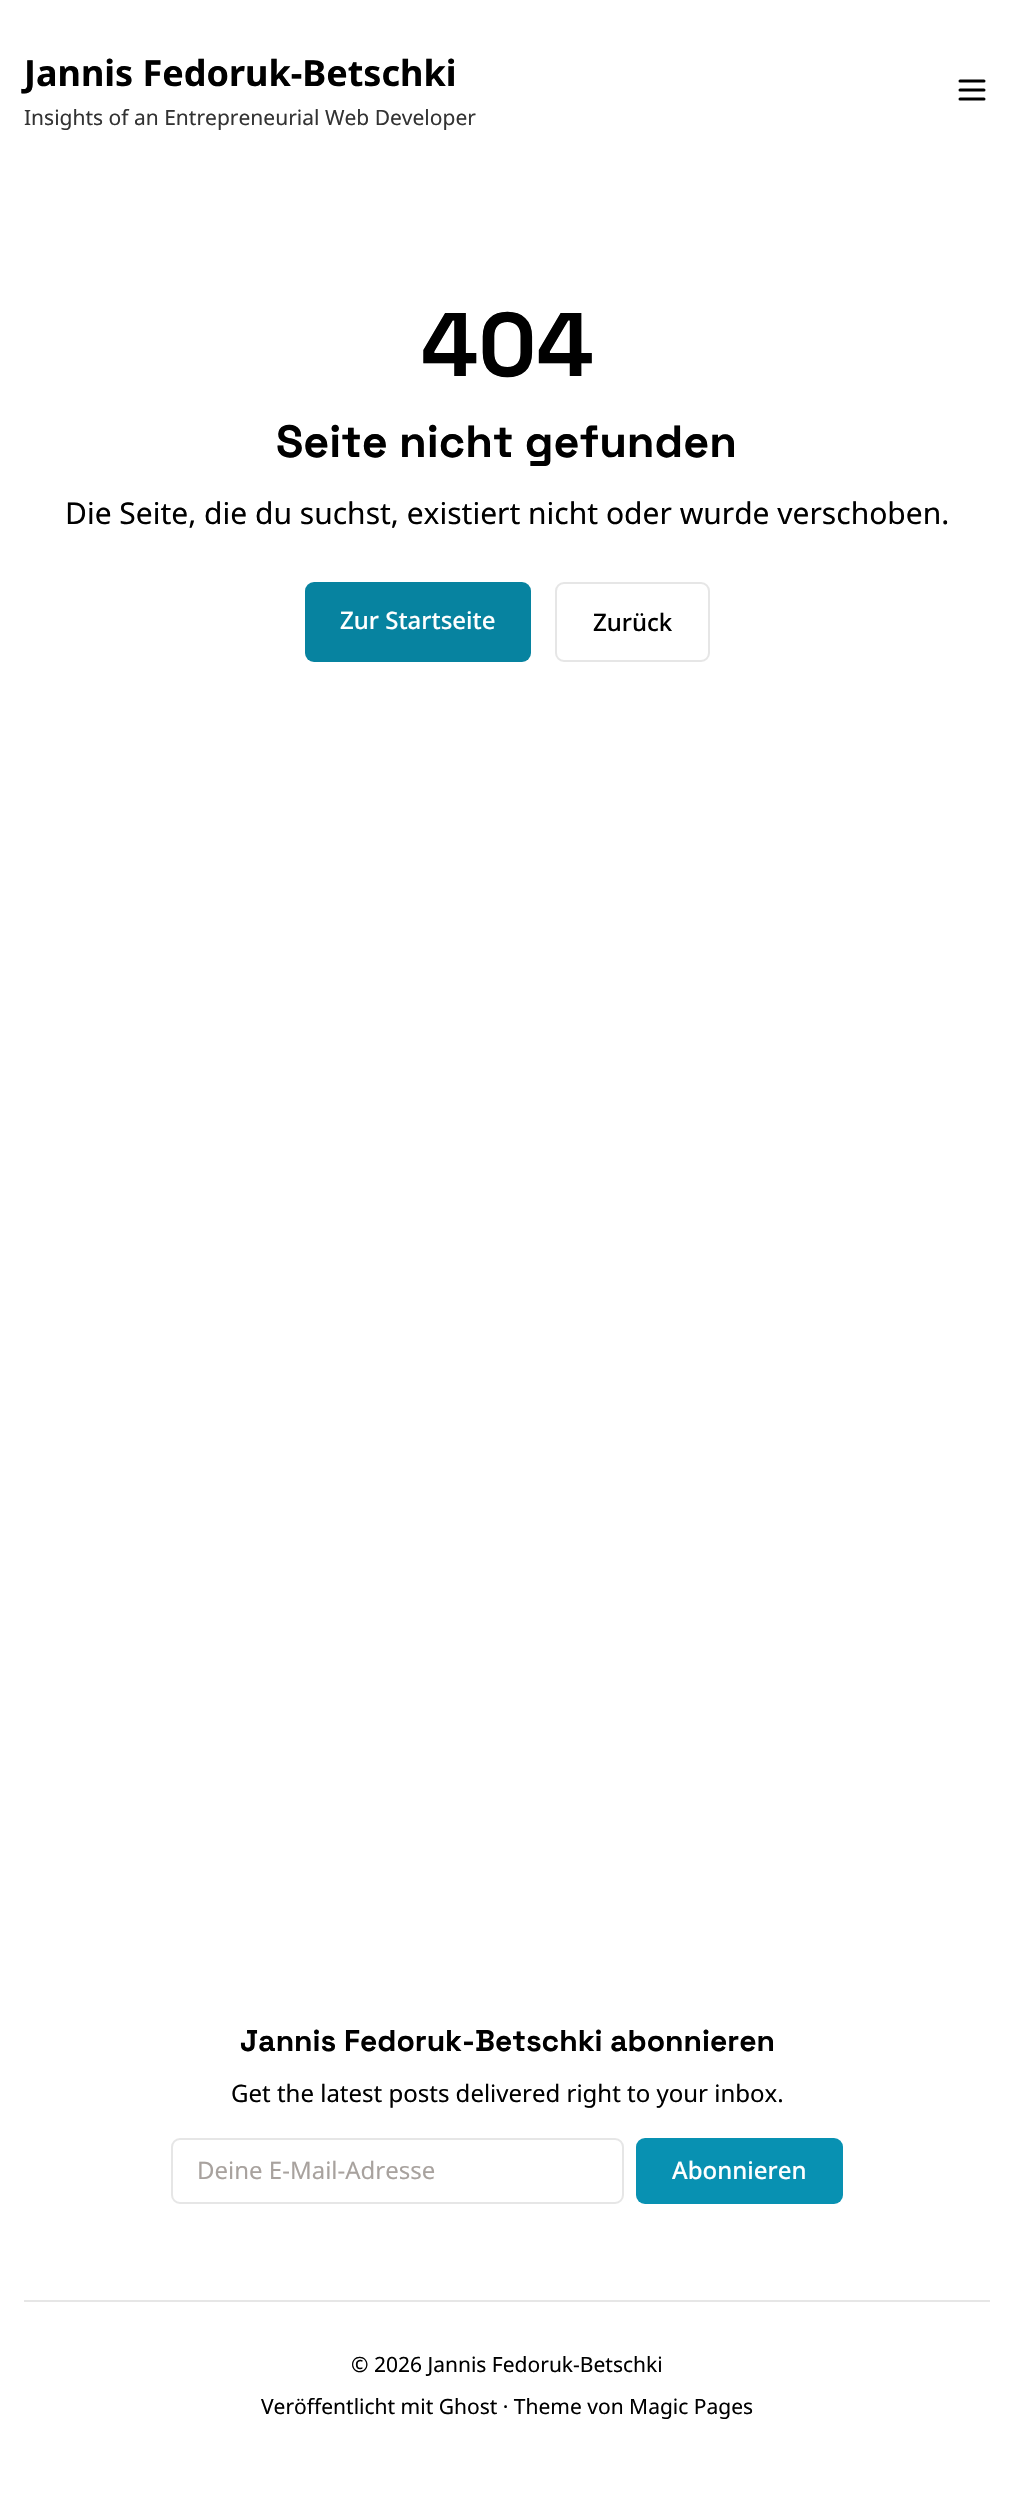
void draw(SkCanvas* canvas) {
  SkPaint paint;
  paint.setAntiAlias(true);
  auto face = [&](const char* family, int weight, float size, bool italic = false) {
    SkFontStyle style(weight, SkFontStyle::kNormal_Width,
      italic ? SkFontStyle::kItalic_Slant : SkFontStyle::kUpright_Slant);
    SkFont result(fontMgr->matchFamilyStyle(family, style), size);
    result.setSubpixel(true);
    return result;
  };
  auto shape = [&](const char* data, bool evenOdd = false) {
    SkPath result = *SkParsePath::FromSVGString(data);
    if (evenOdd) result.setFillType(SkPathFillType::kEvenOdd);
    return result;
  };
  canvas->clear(0xffffffff);
  paint.setStroke(true);
  paint.setStrokeWidth(3);
  paint.setStrokeCap(SkPaint::kRound_Cap);
  paint.setStrokeJoin(SkPaint::kRound_Join);
  paint.setColor(0xff000000);
  canvas->drawPath(shape("M960 81H984M960 90H984M960 99H984"), paint);
  paint.setStroke(false);
  paint.setColor(0xff0783a0);
  canvas->drawRoundRect(SkRect::MakeXYWH(305, 582, 226, 80), 9, 9, paint);
  paint.setStroke(true);
  paint.setStrokeWidth(2);
  paint.setStrokeCap(SkPaint::kButt_Cap);
  paint.setStrokeJoin(SkPaint::kMiter_Join);
  paint.setColor(0xffe6e6e6);
  canvas->drawRoundRect(SkRect::MakeXYWH(556, 583, 153, 78), 8, 8, paint);
  paint.setStroke(false);
  canvas->drawRect(SkRect::MakeXYWH(24, 2300, 966, 2), paint);
  paint.setStroke(true);
  canvas->drawRoundRect(SkRect::MakeXYWH(172, 2139, 451, 64), 8, 8, paint);
  paint.setStroke(false);
  paint.setColor(0xff0891b2);
  canvas->drawRoundRect(SkRect::MakeXYWH(636, 2138, 207, 66), 9, 9, paint);
  auto f0 = face("Noto Sans", 700, 36);
  paint.setColor(0xff000000);
  canvas->drawString("Jannis Fedoruk-Betschki", 24, 86, f0, paint);
  auto f1 = face("Noto Sans", 400, 21);
  paint.setColor(0xff333333);
  canvas->drawString("Insights of an Entrepreneurial Web Developer", 24, 125, f1, paint);
  auto f2 = face("Space Grotesk", 300, 90);
  paint.setColor(0xff000000);
  canvas->drawString("404", 421, 376, f2, paint);
  auto f3 = face("Space Grotesk", 300, 45);
  canvas->drawString("Seite nicht gefunden", 276, 457, f3, paint);
  auto f4 = face("Noto Sans", 400, 30);
  canvas->drawString("Die Seite, die du suchst, existiert nicht oder wurde verschoben.", 65, 524, f4, paint);
  auto f5 = face("Noto Sans", 500, 24);
  paint.setColor(0xffffffff);
  canvas->drawString("Zur Startseite", 340, 629, f5, paint);
  paint.setColor(0xff000000);
  canvas->drawString("Zurück", 593, 631, f5, paint);
  auto f6 = face("Space Grotesk", 300, 30);
  canvas->drawString("Jannis Fedoruk-Betschki abonnieren", 240, 2051, f6, paint);
  auto f7 = face("Noto Sans", 400, 24);
  canvas->drawString("Get the latest posts delivered right to your inbox.", 231, 2102, f7, paint);
  paint.setColor(0xffa8a29e);
  canvas->drawString("Deine E-Mail-Adresse", 197, 2179, f7, paint);
  paint.setColor(0xffffffff);
  canvas->drawString("Abonnieren", 672, 2179, f5, paint);
  paint.setColor(0xff000000);
  canvas->drawString("© 2026 Jannis Fedoruk-Betschki", 351, 2372, f1, paint);
  canvas->drawString("Veröffentlicht mit Ghost · Theme von Magic Pages", 261, 2414, f1, paint);
}
